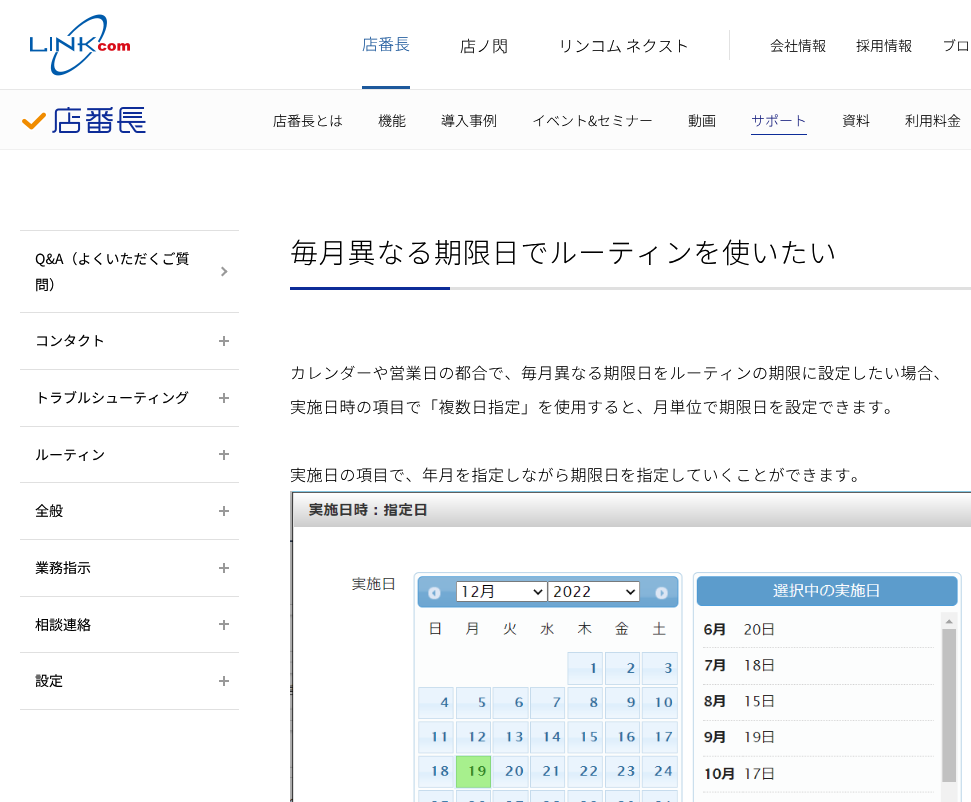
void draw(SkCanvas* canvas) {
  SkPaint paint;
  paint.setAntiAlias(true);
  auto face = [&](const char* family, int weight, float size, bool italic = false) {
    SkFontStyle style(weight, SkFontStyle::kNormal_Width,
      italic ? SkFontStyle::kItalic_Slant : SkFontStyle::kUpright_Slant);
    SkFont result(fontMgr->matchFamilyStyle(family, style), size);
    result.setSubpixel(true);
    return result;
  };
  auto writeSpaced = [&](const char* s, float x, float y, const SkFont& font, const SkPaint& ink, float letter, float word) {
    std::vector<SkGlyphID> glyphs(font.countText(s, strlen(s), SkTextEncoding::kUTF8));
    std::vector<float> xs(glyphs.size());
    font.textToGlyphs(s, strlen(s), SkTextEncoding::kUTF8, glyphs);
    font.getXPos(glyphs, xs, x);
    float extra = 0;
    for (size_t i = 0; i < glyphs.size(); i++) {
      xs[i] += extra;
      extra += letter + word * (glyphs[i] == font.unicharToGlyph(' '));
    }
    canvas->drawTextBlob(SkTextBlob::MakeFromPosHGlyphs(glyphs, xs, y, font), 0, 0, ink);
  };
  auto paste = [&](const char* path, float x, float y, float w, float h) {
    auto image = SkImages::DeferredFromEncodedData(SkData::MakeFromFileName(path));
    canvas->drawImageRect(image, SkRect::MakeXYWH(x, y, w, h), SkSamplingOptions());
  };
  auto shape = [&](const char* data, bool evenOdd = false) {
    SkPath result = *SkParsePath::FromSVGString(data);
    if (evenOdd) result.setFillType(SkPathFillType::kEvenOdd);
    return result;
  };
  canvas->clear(0xffffffff);
  paint.setColor(0xffe7e7e7);
  canvas->drawRect(SkRect::MakeXYWH(0, 89, 971, 1), paint);
  paste("img/1.png", 30, 14, 100, 62);
  {
    const struct { float x, y, w, h; SkColor color; } items[] = {
      {362, 86, 48, 3, 0xff1d599c},
      {729, 30, 1, 30, 0xffe2e2e2},
      {0, 90, 971, 59, 0xfffcfcfc},
      {0, 149, 971, 1, 0xfff0f0f0},
    };
    for (auto [x, y, w, h, color] : items) {
      paint.setColor(color);
      canvas->drawRect(SkRect::MakeXYWH(x, y, w, h), paint);
    }
  }
  paste("img/2.png", 22, 107, 124, 26);
  {
    const struct { float x, y, w, h; SkColor color; } items[] = {
      {751, 134, 56, 1, 0xff0d2c98},
      {20, 230, 219, 1, 0xffe0e0e0},
      {20, 312, 219, 1, 0xffe0e0e0},
    };
    for (auto [x, y, w, h, color] : items) {
      paint.setColor(color);
      canvas->drawRect(SkRect::MakeXYWH(x, y, w, h), paint);
    }
  }
  paint.setColor(0xff999999);
  canvas->drawPath(shape("M222.5 266.5L227.5 271.5L226 273L221 268Z"), paint);
  canvas->drawPath(shape("M226 270L227.5 271.5L222.5 276.5L221 275Z"), paint);
  {
    const struct { float x, y, w, h; SkColor color; } items[] = {
      {20, 369, 219, 1, 0xffe0e0e0},
      {219, 340, 10, 2, 0xff999999},
      {223, 336, 2, 10, 0xff999999},
      {20, 426, 219, 1, 0xffe0e0e0},
      {219, 397, 10, 2, 0xff999999},
      {223, 393, 2, 10, 0xff999999},
      {20, 482, 219, 1, 0xffe0e0e0},
      {219, 453, 10, 2, 0xff999999},
      {223, 450, 2, 10, 0xff999999},
      {20, 539, 219, 1, 0xffe0e0e0},
      {219, 510, 10, 2, 0xff999999},
      {223, 506, 2, 10, 0xff999999},
      {20, 596, 219, 1, 0xffe0e0e0},
      {219, 567, 10, 2, 0xff999999},
      {223, 563, 2, 10, 0xff999999},
      {20, 652, 219, 1, 0xffe0e0e0},
      {219, 623, 10, 2, 0xff999999},
      {223, 620, 2, 10, 0xff999999},
      {20, 709, 219, 1, 0xffe0e0e0},
      {219, 680, 10, 2, 0xff999999},
      {223, 676, 2, 10, 0xff999999},
      {450, 287, 521, 3, 0xffe0e0e0},
      {290, 287, 160, 3, 0xff0d2c98},
    };
    for (auto [x, y, w, h, color] : items) {
      paint.setColor(color);
      canvas->drawRect(SkRect::MakeXYWH(x, y, w, h), paint);
    }
  }
  paste("img/3.png", 290, 491, 681, 311);
  auto f0 = face("Noto Sans JP", 300, 16);
  paint.setColor(0xff1d599c);
  canvas->drawString("店番長", 362, 50, f0, paint);
  paint.setColor(0xff000000);
  canvas->drawString("店ノ閃", 460, 52, f0, paint);
  canvas->drawString("リンコム ネクスト", 558, 52, f0, paint);
  auto f1 = face("Noto Sans JP", 300, 14);
  {
    const struct { const char* s; float x, y; } items[] = {
      {"会社情報", 770, 51},
      {"採用情報", 856, 51},
      {"ブロ", 942, 51},
      {"店番長とは", 273, 126},
      {"機能", 378, 126},
      {"導入事例", 441, 126},
      {"イベント&セミナー", 532, 126},
      {"動画", 688, 126},
    };
    for (auto [s, x, y] : items) {
      canvas->drawString(s, x, y, f1, paint);
    }
  }
  paint.setColor(0xff1a2280);
  canvas->drawString("サポート", 751, 126, f1, paint);
  paint.setColor(0xff000000);
  canvas->drawString("資料", 842, 126, f1, paint);
  canvas->drawString("利用料金", 905, 126, f1, paint);
  auto f2 = face("Noto Sans JP", 400, 14);
  {
    const struct { const char* s; float x, y; } items[] = {
      {"Q&A（よくいただくご質", 35, 264},
      {"問）", 35, 290},
      {"コンタクト", 35, 346},
      {"トラブルシューティング", 35, 403},
      {"ルーティン", 35, 460},
      {"全般", 35, 516},
      {"業務指示", 35, 573},
      {"相談連絡", 35, 630},
      {"設定", 35, 686},
    };
    for (auto [s, x, y] : items) {
      canvas->drawString(s, x, y, f2, paint);
    }
  }
  auto f3 = face("Noto Sans JP", 300, 28);
  writeSpaced("毎月異なる期限日でルーティンを使いたい", 290, 263, f3, paint, 0.8f, 0);
  {
    const struct { const char* s; float x, y; } items[] = {
      {"カレンダーや営業日の都合で、毎月異なる期限日をルーティンの期限に設定したい場合、", 290, 379},
      {"実施日時の項目で「複数日指定」を使用すると、月単位で期限日を設定できます。", 290, 413},
      {"実施日の項目で、年月を指定しながら期限日を指定していくことができます。", 290, 481},
    };
    for (auto [s, x, y] : items) {
      writeSpaced(s, x, y, f0, paint, 0.5f, 0);
    }
  }
}
